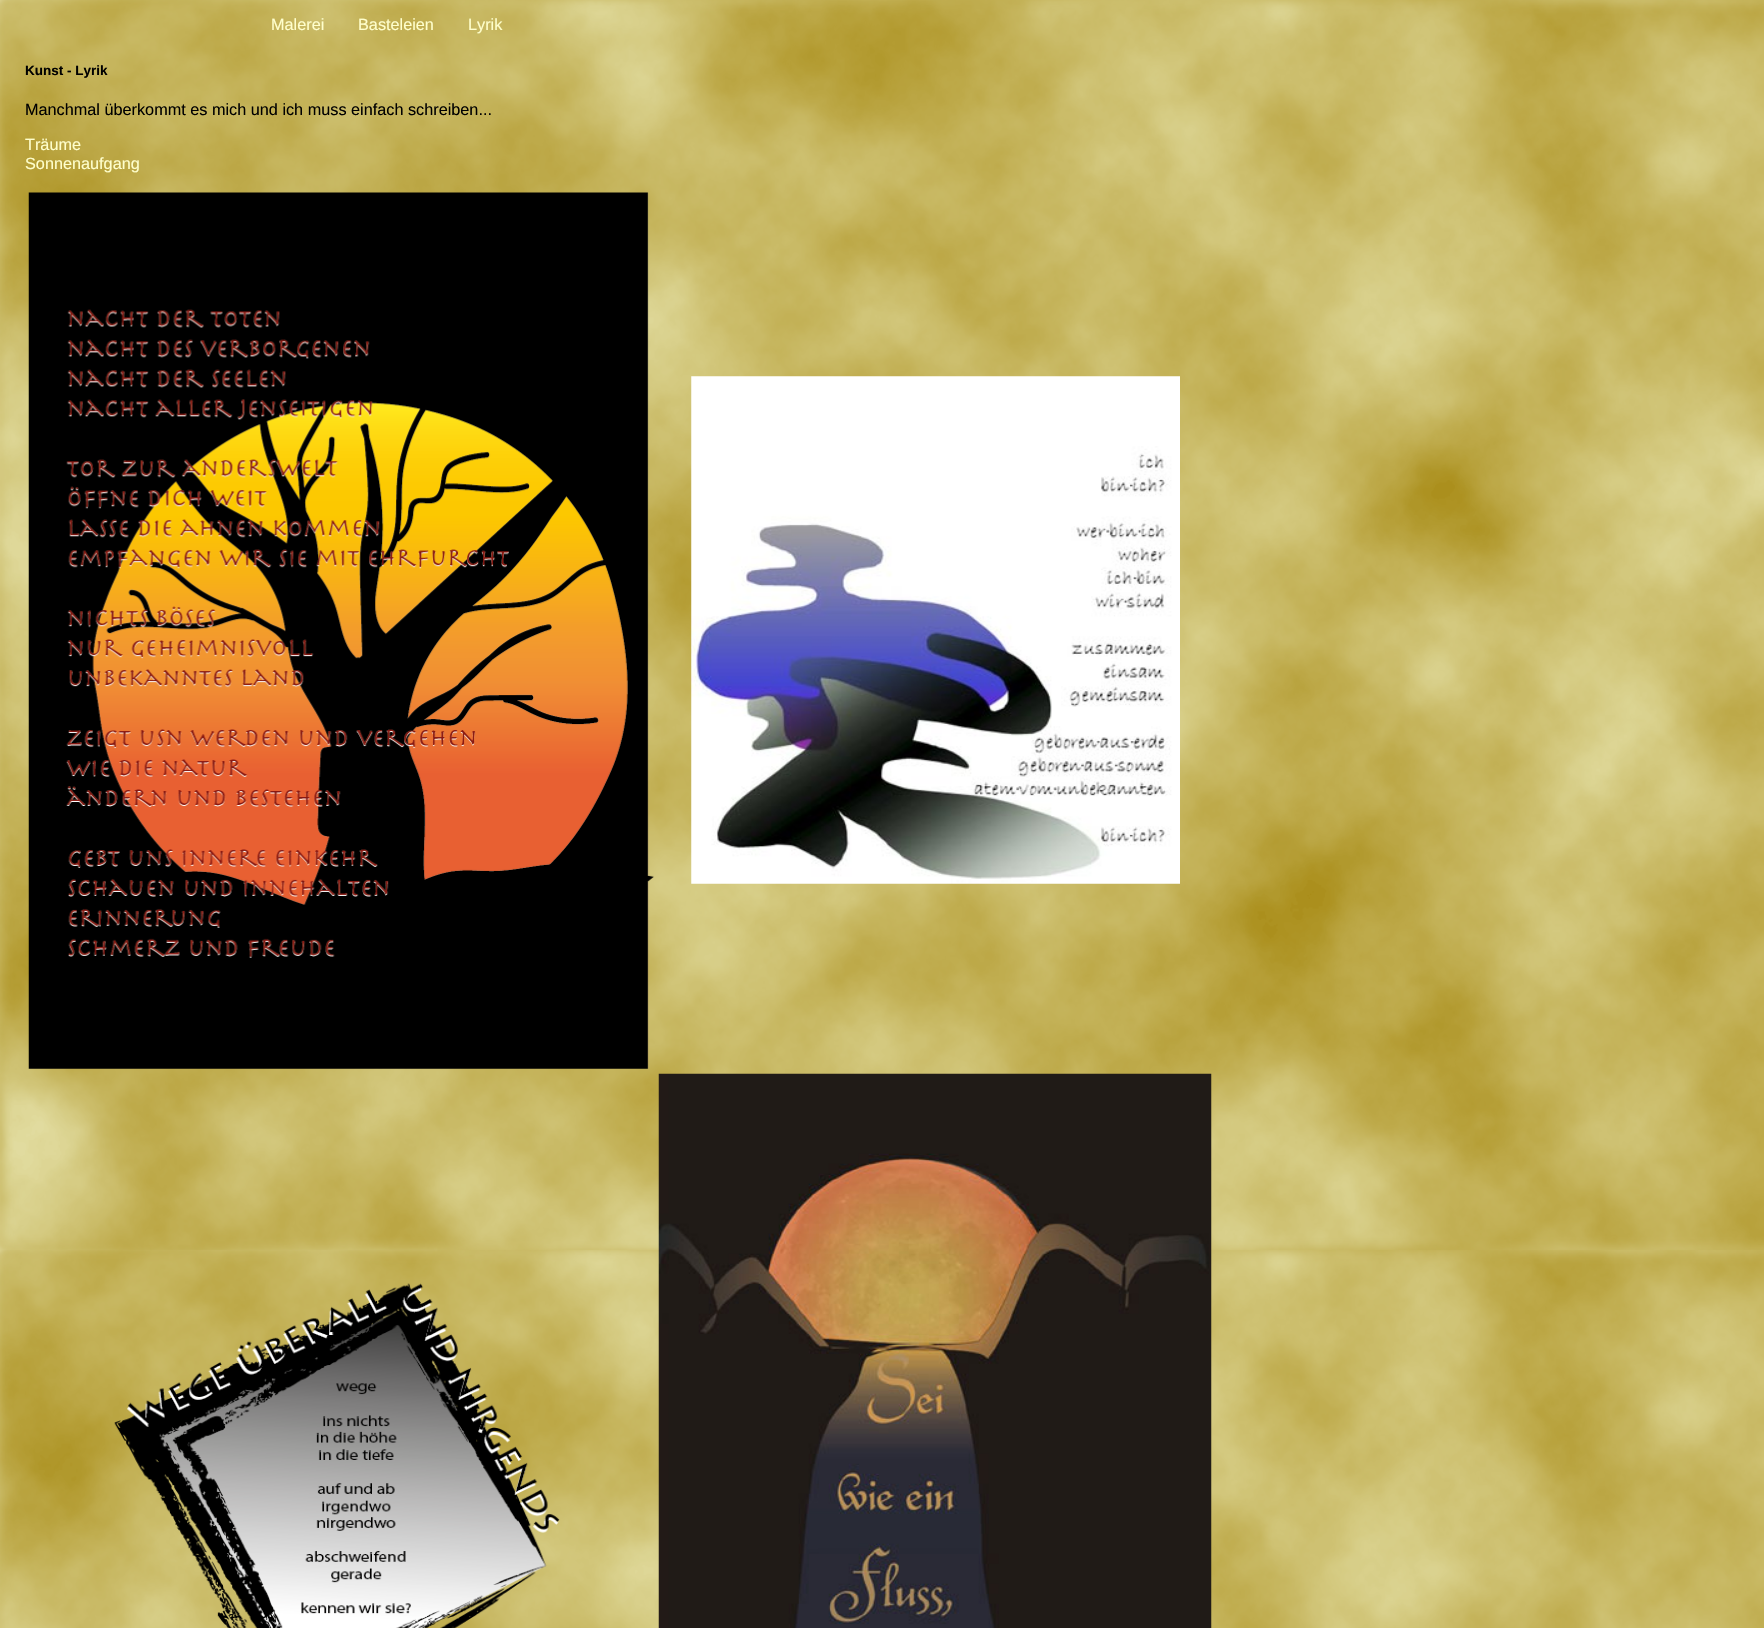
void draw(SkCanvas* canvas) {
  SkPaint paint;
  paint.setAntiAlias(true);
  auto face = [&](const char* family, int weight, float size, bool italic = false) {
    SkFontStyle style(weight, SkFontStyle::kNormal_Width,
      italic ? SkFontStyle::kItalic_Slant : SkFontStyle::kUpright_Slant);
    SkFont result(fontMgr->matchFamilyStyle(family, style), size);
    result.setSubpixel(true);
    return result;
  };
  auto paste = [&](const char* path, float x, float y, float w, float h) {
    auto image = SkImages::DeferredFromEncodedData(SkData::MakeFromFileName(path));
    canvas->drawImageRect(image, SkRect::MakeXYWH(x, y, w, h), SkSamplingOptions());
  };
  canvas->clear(0xffffffff);
  paste("img/1.png", 0, 0, 1764, 1628);
  paste("img/2.png", 28, 192, 626, 877);
  paste("img/3.png", 691, 376, 489, 508);
  paste("img/4.png", 114, 1283, 446, 345);
  paste("img/5.png", 658, 1073, 554, 555);
  auto f0 = face("Liberation Sans", 400, 16.25f);
  paint.setColor(0xffffffcc);
  {
    const struct { const char* s; float x, y; } items[] = {
      {"Malerei", 271, 30},
      {"Basteleien", 358, 30},
      {"Lyrik", 468, 30},
    };
    for (auto [s, x, y] : items) {
      canvas->drawString(s, x, y, f0, paint);
    }
  }
  auto f1 = face("Liberation Sans", 700, 13.5f);
  paint.setColor(0xff000000);
  canvas->drawString("Kunst - Lyrik", 25, 75, f1, paint);
  canvas->drawString("Manchmal überkommt es mich und ich muss einfach schreiben...", 25, 115, f0, paint);
  paint.setColor(0xffffffcc);
  canvas->drawString("Träume", 25, 150, f0, paint);
  canvas->drawString("Sonnenaufgang", 25, 169, f0, paint);
}
